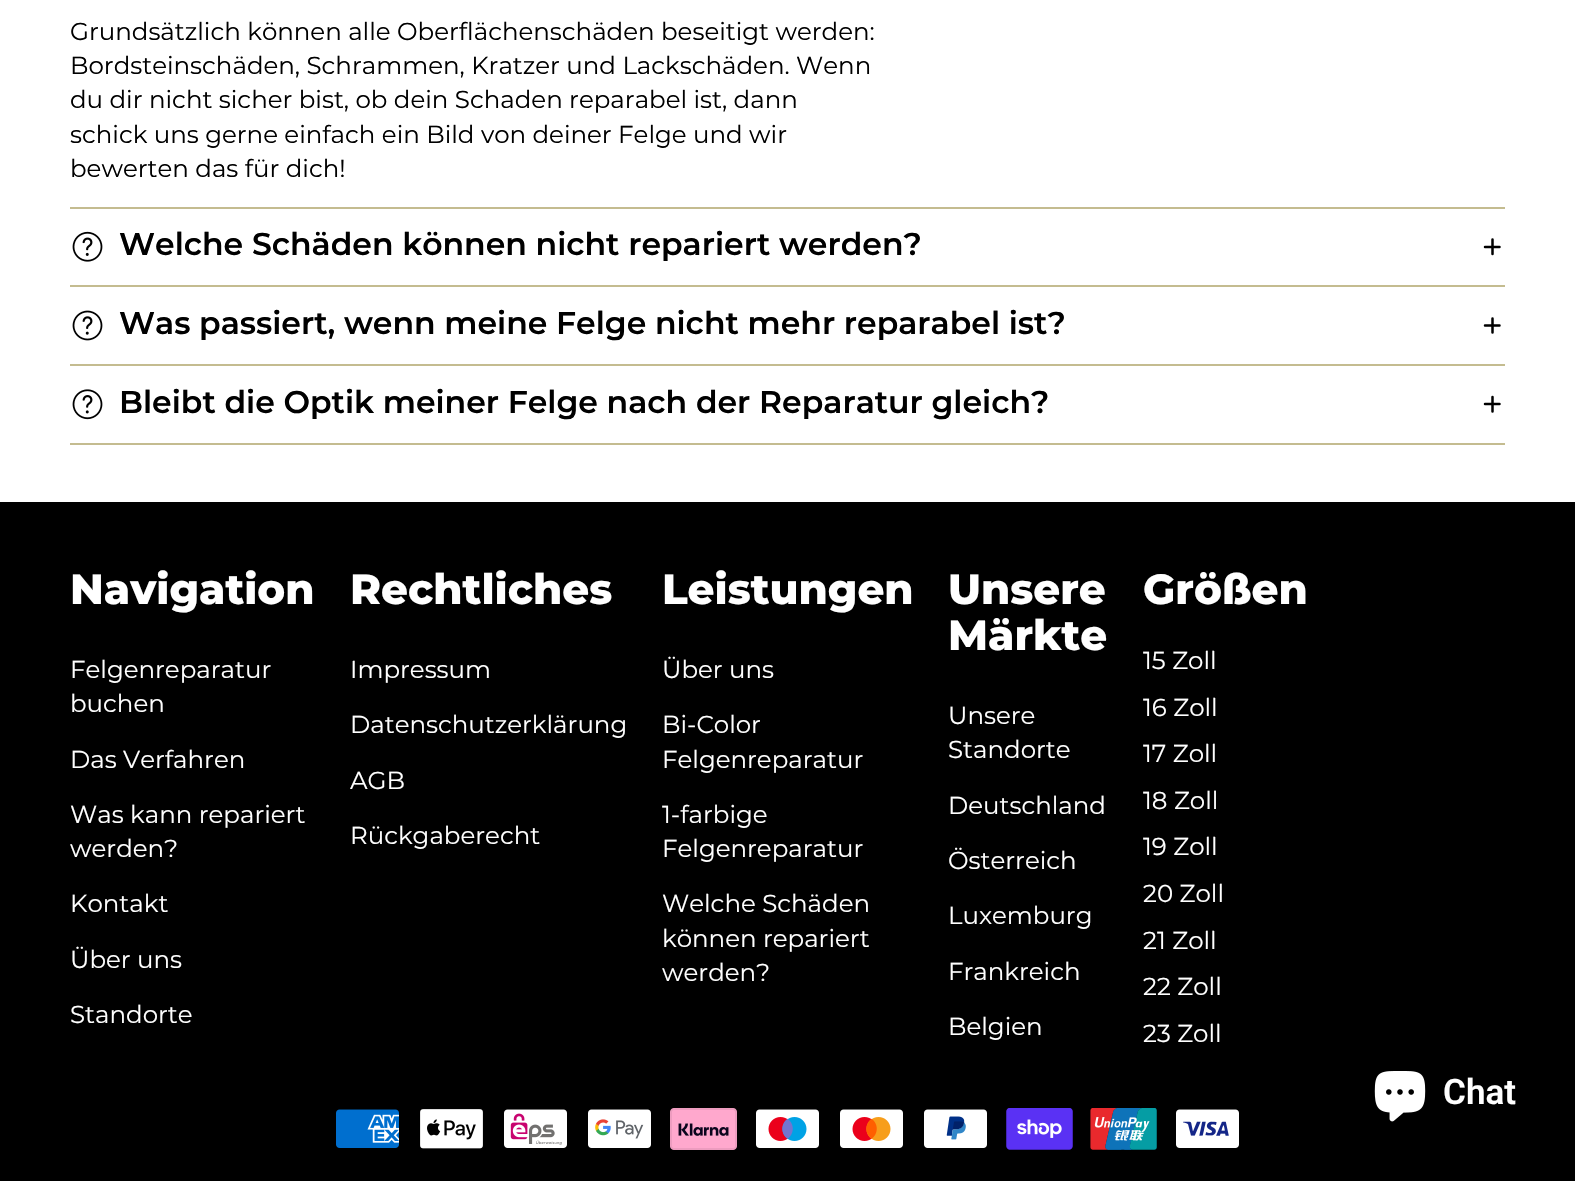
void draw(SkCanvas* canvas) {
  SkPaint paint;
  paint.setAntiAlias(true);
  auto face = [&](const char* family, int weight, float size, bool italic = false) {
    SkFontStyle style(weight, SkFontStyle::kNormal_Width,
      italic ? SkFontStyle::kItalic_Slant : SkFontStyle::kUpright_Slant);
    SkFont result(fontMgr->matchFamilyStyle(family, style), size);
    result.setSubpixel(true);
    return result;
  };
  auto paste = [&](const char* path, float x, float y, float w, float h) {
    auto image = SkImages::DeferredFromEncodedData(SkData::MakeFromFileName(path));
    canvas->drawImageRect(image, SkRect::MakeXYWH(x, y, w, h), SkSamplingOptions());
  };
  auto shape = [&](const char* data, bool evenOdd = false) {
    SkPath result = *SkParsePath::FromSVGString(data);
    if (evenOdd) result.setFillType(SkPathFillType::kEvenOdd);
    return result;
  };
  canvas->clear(0xffffffff);
  paint.setColor(0xffc4bc90);
  canvas->drawRect(SkRect::MakeXYWH(70, 207, 1435, 2), paint);
  paste("img/1.png", 72, 231, 31, 31);
  paint.setStroke(true);
  paint.setStrokeWidth(2.5f);
  paint.setStrokeCap(SkPaint::kRound_Cap);
  paint.setColor(0xff000000);
  canvas->drawPath(shape("M1485 247H1499.5M1492.5 239.5V254"), paint);
  paint.setStroke(false);
  paint.setColor(0xffc4bc90);
  canvas->drawRect(SkRect::MakeXYWH(70, 285, 1435, 2), paint);
  paste("img/2.png", 72, 310, 31, 31);
  paint.setStroke(true);
  paint.setColor(0xff000000);
  canvas->drawPath(shape("M1485 325.5H1499.5M1492.5 318.5V332.5"), paint);
  paint.setStroke(false);
  paint.setColor(0xffc4bc90);
  canvas->drawRect(SkRect::MakeXYWH(70, 364, 1435, 2), paint);
  canvas->drawRect(SkRect::MakeXYWH(70, 443, 1435, 2), paint);
  paste("img/3.png", 72, 389, 31, 31);
  paint.setStroke(true);
  paint.setColor(0xff000000);
  canvas->drawPath(shape("M1485 404H1499.5M1492.5 397V411.5"), paint);
  paint.setStroke(false);
  canvas->drawRect(SkRect::MakeXYWH(0, 502, 1575, 679), paint);
  paste("img/4.png", 336, 1109, 63, 39);
  paste("img/5.png", 420, 1109, 63, 40);
  paste("img/6.png", 504, 1109, 63, 39);
  paste("img/7.png", 588, 1109, 63, 39);
  paste("img/8.png", 670, 1108, 67, 42);
  paste("img/9.png", 756, 1109, 63, 39);
  paste("img/10.png", 840, 1109, 63, 39);
  paste("img/11.png", 924, 1109, 63, 39);
  paste("img/12.png", 1006, 1108, 67, 42);
  paste("img/13.png", 1090, 1108, 67, 42);
  paste("img/14.png", 1176, 1109, 63, 39);
  paste("img/15.png", 1374, 1071, 52, 51);
  auto f0 = face("Montserrat", 400, 24.5f);
  {
    const struct { const char* s; float x, y; } items[] = {
      {"Grundsätzlich können alle Oberflächenschäden beseitigt werden:", 70, 40},
      {"Bordsteinschäden, Schrammen, Kratzer und Lackschäden. Wenn", 70, 74},
      {"du dir nicht sicher bist, ob dein Schaden reparabel ist, dann", 70, 108},
      {"schick uns gerne einfach ein Bild von deiner Felge und wir", 70, 143},
      {"bewerten das für dich!", 70, 177},
    };
    for (auto [s, x, y] : items) {
      canvas->drawString(s, x, y, f0, paint);
    }
  }
  auto f1 = face("Montserrat", 600, 31.5f);
  {
    const struct { const char* s; float x, y; } items[] = {
      {"Welche Schäden können nicht repariert werden?", 119, 255},
      {"Was passiert, wenn meine Felge nicht mehr reparabel ist?", 119, 334},
      {"Bleibt die Optik meiner Felge nach der Reparatur gleich?", 119, 413},
    };
    for (auto [s, x, y] : items) {
      canvas->drawString(s, x, y, f1, paint);
    }
  }
  auto f2 = face("Montserrat", 800, 42);
  paint.setColor(0xffffffff);
  canvas->drawString("Navigation", 70, 604, f2, paint);
  {
    const struct { const char* s; float x, y; } items[] = {
      {"Felgenreparatur", 70, 678},
      {"buchen", 70, 712},
      {"Das Verfahren", 70, 768},
      {"Was kann repariert", 70, 823},
      {"werden?", 70, 857},
      {"Kontakt", 70, 912},
      {"Über uns", 70, 968},
      {"Standorte", 70, 1023},
    };
    for (auto [s, x, y] : items) {
      canvas->drawString(s, x, y, f0, paint);
    }
  }
  canvas->drawString("Rechtliches", 350, 604, f2, paint);
  {
    const struct { const char* s; float x, y; } items[] = {
      {"Impressum", 350, 678},
      {"Datenschutzerklärung", 350, 733},
      {"AGB", 350, 789},
      {"Rückgaberecht", 350, 844},
    };
    for (auto [s, x, y] : items) {
      canvas->drawString(s, x, y, f0, paint);
    }
  }
  canvas->drawString("Leistungen", 662, 604, f2, paint);
  {
    const struct { const char* s; float x, y; } items[] = {
      {"Über uns", 662, 678},
      {"Bi-Color", 662, 733},
      {"Felgenreparatur", 662, 768},
      {"1-farbige", 662, 823},
      {"Felgenreparatur", 662, 857},
      {"Welche Schäden", 662, 912},
      {"können repariert", 662, 947},
      {"werden?", 662, 981},
    };
    for (auto [s, x, y] : items) {
      canvas->drawString(s, x, y, f0, paint);
    }
  }
  canvas->drawString("Unsere", 948, 604, f2, paint);
  canvas->drawString("Märkte", 948, 650, f2, paint);
  {
    const struct { const char* s; float x, y; } items[] = {
      {"Unsere", 948, 724},
      {"Standorte", 948, 758},
      {"Deutschland", 948, 814},
      {"Österreich", 948, 869},
      {"Luxemburg", 948, 924},
      {"Frankreich", 948, 980},
      {"Belgien", 948, 1035},
    };
    for (auto [s, x, y] : items) {
      canvas->drawString(s, x, y, f0, paint);
    }
  }
  canvas->drawString("Größen", 1143, 604, f2, paint);
  {
    const struct { const char* s; float x, y; } items[] = {
      {"15 Zoll", 1143, 669},
      {"16 Zoll", 1143, 716},
      {"17 Zoll", 1143, 762},
      {"18 Zoll", 1143, 809},
      {"19 Zoll", 1143, 855},
      {"20 Zoll", 1143, 902},
      {"21 Zoll", 1143, 949},
      {"22 Zoll", 1143, 995},
      {"23 Zoll", 1143, 1042},
    };
    for (auto [s, x, y] : items) {
      canvas->drawString(s, x, y, f0, paint);
    }
  }
  auto f3 = face("Roboto", 600, 35);
  canvas->drawString("Chat", 1443, 1104, f3, paint);
}
